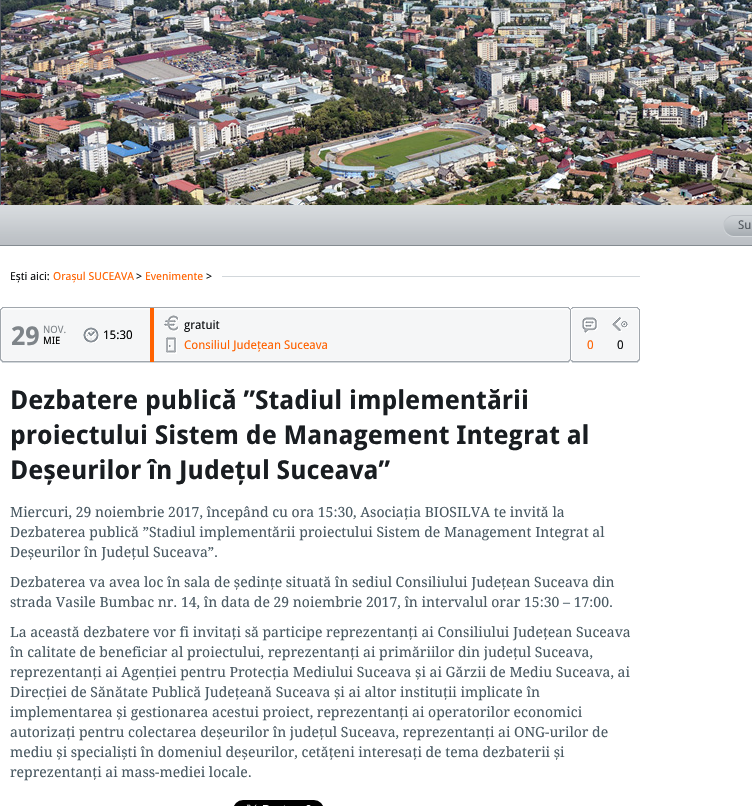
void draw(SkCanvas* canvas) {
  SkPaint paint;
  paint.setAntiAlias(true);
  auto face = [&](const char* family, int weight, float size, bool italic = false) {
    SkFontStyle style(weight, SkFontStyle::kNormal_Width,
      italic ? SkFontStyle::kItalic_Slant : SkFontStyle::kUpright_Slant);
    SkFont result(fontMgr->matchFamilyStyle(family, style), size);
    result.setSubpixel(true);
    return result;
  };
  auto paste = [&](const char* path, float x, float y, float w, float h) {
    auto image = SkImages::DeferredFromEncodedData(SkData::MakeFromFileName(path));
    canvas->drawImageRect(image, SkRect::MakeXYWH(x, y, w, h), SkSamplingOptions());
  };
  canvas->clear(0xffffffff);
  paint.setStroke(true);
  paint.setStrokeWidth(1);
  paint.setColor(0xff52585e);
  canvas->drawRect(SkRect::MakeXYWH(0.5f, -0.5f, 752, 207), paint);
  paste("img/1.png", 1, 0, 751, 205);
  paste("img/2.png", 0, 205, 752, 41);
  paste("img/3.png", 723, 215, 29, 22);
  paint.setStroke(false);
  paint.setColor(0xffd2d7db);
  canvas->drawRect(SkRect::MakeXYWH(222, 276, 418, 1), paint);
  paste("img/4.png", 3, 307, 565, 56);
  paste("img/5.png", 0, 307, 3, 56);
  paint.setColor(0xffff6200);
  canvas->drawRect(SkRect::MakeXYWH(150, 308, 4, 54), paint);
  paste("img/6.png", 83, 327, 16, 17);
  paste("img/7.png", 164, 315, 15, 17);
  paste("img/8.png", 166, 337, 11, 17);
  paste("img/9.png", 573, 307, 64, 56);
  paste("img/10.png", 568, 307, 5, 56);
  paste("img/11.png", 582, 317, 16, 17);
  paste("img/12.png", 612, 317, 16, 15);
  paste("img/13.png", 637, 307, 3, 56);
  paste("img/14.png", 234, 800, 89, 6);
  auto f0 = face("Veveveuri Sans", 400, 12);
  paint.setColor(0xff52585e);
  canvas->drawString("Su", 738, 229, f0, paint);
  auto f1 = face("Veveveuri Sans", 400, 11);
  paint.setColor(0xff0e1012);
  canvas->drawString("Ești aici:", 10, 280, f1, paint);
  paint.setColor(0xffff6200);
  canvas->drawString("Orașul SUCEAVA", 53, 280, f1, paint);
  paint.setColor(0xff0e1012);
  canvas->drawString(">", 136, 280, f1, paint);
  paint.setColor(0xffff6200);
  canvas->drawString("Evenimente", 145, 280, f1, paint);
  paint.setColor(0xff0e1012);
  canvas->drawString(">", 206, 280, f1, paint);
  auto f2 = face("Veveveuri Sans", 700, 26);
  paint.setColor(0xff7e8489);
  canvas->drawString("29", 11, 345, f2, paint);
  auto f3 = face("Veveveuri Sans", 400, 10);
  canvas->drawString("NOV.", 43, 333, f3, paint);
  paint.setColor(0xff000000);
  canvas->drawString("MIE", 43, 344, f3, paint);
  canvas->drawString("15:30", 103, 339, f0, paint);
  paint.setColor(0xff0e1012);
  canvas->drawString("gratuit", 184, 329, f0, paint);
  paint.setColor(0xffff6200);
  canvas->drawString("Consiliul Judeţean Suceava", 184, 349, f0, paint);
  canvas->drawString("0", 587, 349, f0, paint);
  paint.setColor(0xff0e1012);
  canvas->drawString("0", 617, 349, f0, paint);
  paint.setColor(0xff191d21);
  {
    const struct { const char* s; float x, y; } items[] = {
      {"Dezbatere publică ”Stadiul implementării", 10, 409},
      {"proiectului Sistem de Management Integrat al", 10, 444},
      {"Deșeurilor în Județul Suceava”", 10, 479},
    };
    for (auto [s, x, y] : items) {
      canvas->drawString(s, x, y, f2, paint);
    }
  }
  auto f4 = face("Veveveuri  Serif", 400, 14);
  paint.setColor(0xff4a5a63);
  {
    const struct { const char* s; float x, y; } items[] = {
      {"Miercuri, 29 noiembrie 2017, începând cu ora 15:30, Asociația BIOSILVA te invită la", 10, 517},
      {"Dezbaterea publică ”Stadiul implementării proiectului Sistem de Management Integrat al", 10, 537},
      {"Deșeurilor în Județul Suceava”.", 10, 557},
      {"Dezbaterea va avea loc în sala de ședințe situată în sediul Consiliului Județean Suceava din", 10, 587},
      {"strada Vasile Bumbac nr. 14, în data de 29 noiembrie 2017, în intervalul orar 15:30 – 17:00.", 10, 607},
      {"La această dezbatere vor fi invitați să participe reprezentanți ai Consiliului Județean Suceava", 10, 637},
      {"în calitate de beneficiar al proiectului, reprezentanți ai primăriilor din județul Suceava,", 10, 657},
      {"reprezentanți ai Agenţiei pentru Protecţia Mediului Suceava și ai Gărzii de Mediu Suceava, ai", 10, 677},
      {"Direcţiei de Sănătate Publică Judeţeană Suceava și ai altor instituții implicate în", 10, 697},
      {"implementarea și gestionarea acestui proiect, reprezentanți ai operatorilor economici", 10, 717},
      {"autorizați pentru colectarea deșeurilor în județul Suceava, reprezentanți ai ONG-urilor de", 10, 737},
      {"mediu și specialiști în domeniul deșeurilor, cetățeni interesați de tema dezbaterii și", 10, 757},
      {"reprezentanți ai mass-mediei locale.", 10, 777},
    };
    for (auto [s, x, y] : items) {
      canvas->drawString(s, x, y, f4, paint);
    }
  }
}
